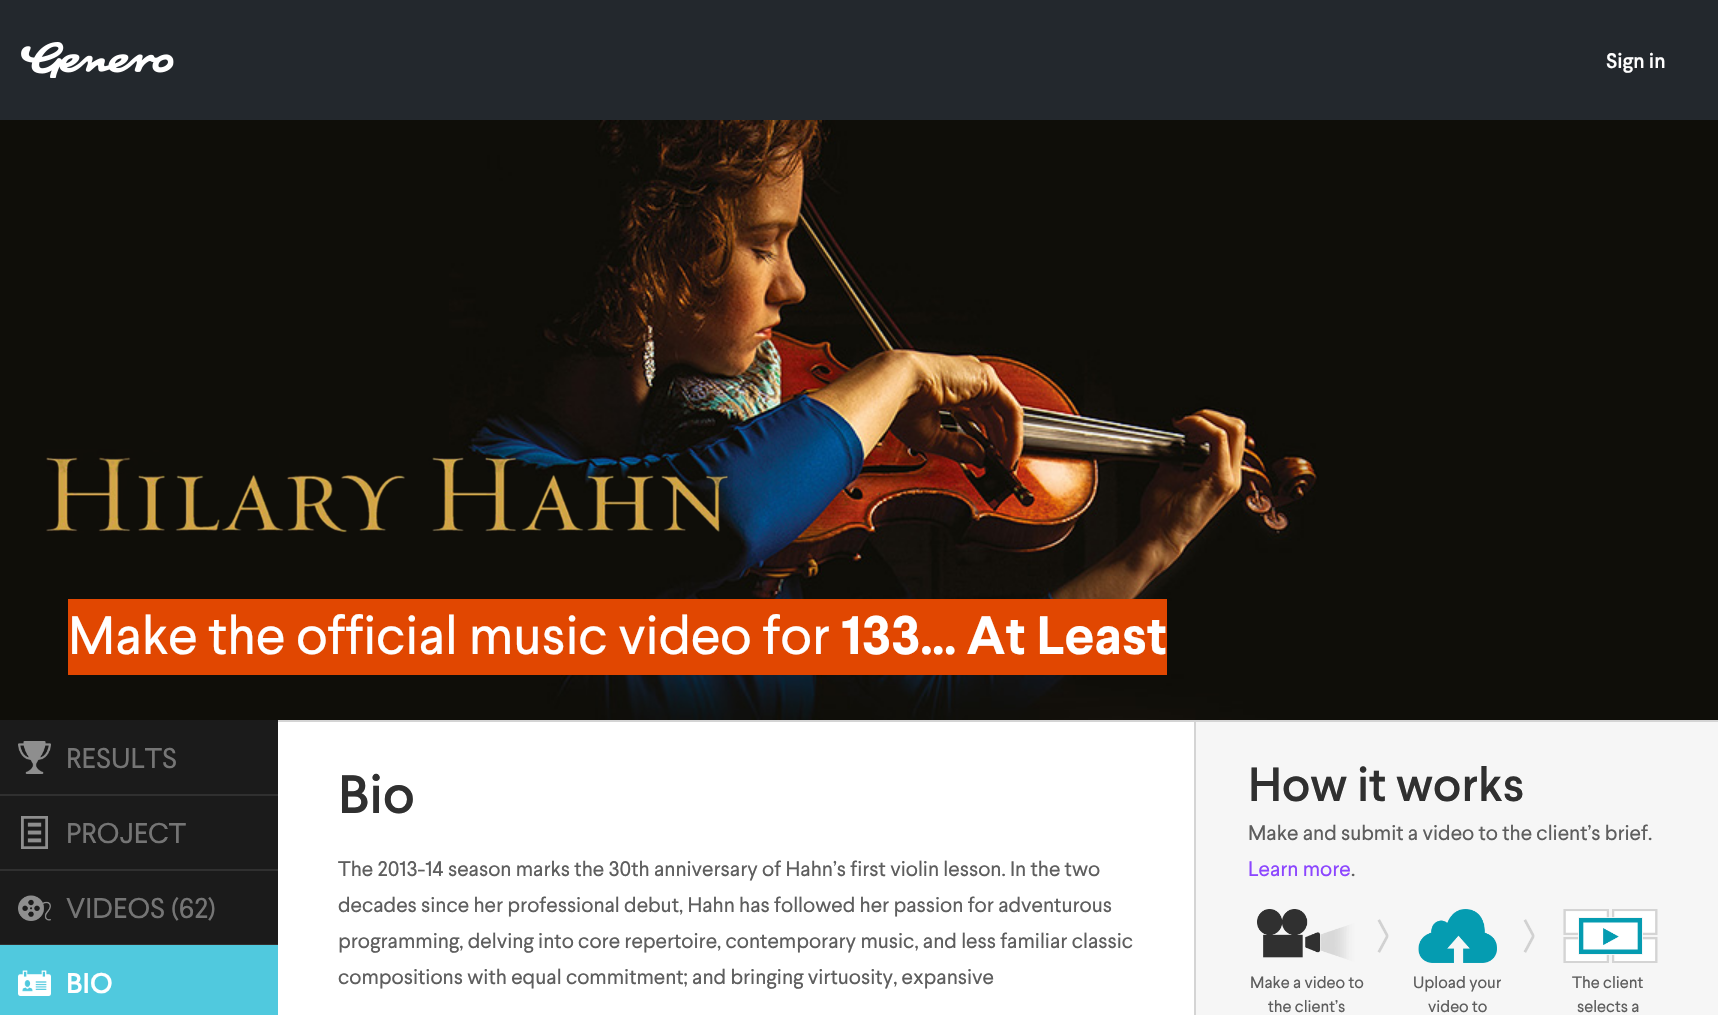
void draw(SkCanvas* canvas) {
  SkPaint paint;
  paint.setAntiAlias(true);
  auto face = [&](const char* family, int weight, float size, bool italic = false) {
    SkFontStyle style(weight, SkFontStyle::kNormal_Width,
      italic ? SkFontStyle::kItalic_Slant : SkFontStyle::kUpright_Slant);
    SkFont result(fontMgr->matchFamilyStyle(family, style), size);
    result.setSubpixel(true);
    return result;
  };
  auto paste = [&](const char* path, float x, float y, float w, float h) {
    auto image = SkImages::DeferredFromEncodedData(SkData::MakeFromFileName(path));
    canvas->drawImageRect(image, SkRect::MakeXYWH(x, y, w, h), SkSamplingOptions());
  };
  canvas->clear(0xff1b1b1b);
  paint.setColor(0xff23282d);
  canvas->drawRect(SkRect::MakeXYWH(0, 0, 1718, 120), paint);
  paste("img/1.png", 21, 42, 153, 36);
  paint.setColor(0xff0f0e09);
  canvas->drawRect(SkRect::MakeXYWH(0, 120, 1718, 600), paint);
  paste("img/2.png", 449, 120, 870, 600);
  paste("img/3.png", 46, 449, 687, 84);
  paint.setColor(0xffe14701);
  canvas->drawRect(SkRect::MakeXYWH(68, 599, 1099, 76), paint);
  paint.setColor(0xff303030);
  canvas->drawRect(SkRect::MakeXYWH(0, 794, 278, 2), paint);
  paste("img/4.png", 18, 741, 33, 33);
  canvas->drawRect(SkRect::MakeXYWH(0, 869, 278, 2), paint);
  paste("img/5.png", 21, 816, 27, 33);
  canvas->drawRect(SkRect::MakeXYWH(0, 944, 278, 1), paint);
  paste("img/6.png", 18, 895, 33, 26);
  paint.setColor(0xff50c9de);
  canvas->drawRect(SkRect::MakeXYWH(0, 945, 278, 70), paint);
  paste("img/7.png", 18, 970, 33, 26);
  {
    const struct { float x, y, w, h; SkColor color; } items[] = {
      {278, 722, 916, 293, 0xffffffff},
      {278, 720, 1440, 2, 0xffd4d4d4},
      {1196, 722, 522, 293, 0xfff6f6f6},
      {1194, 722, 2, 293, 0xffd4d4d4},
    };
    for (auto [x, y, w, h, color] : items) {
      paint.setColor(color);
      canvas->drawRect(SkRect::MakeXYWH(x, y, w, h), paint);
    }
  }
  paste("img/8.png", 1257, 909, 401, 54);
  auto f0 = face("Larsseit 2", 400, 21);
  paint.setColor(0xffffffff);
  canvas->drawString("Sign in", 1606, 68, f0, paint);
  auto f1 = face("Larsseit", 400, 54);
  canvas->drawString("Make the official music video for", 68, 654, f1, paint);
  auto f2 = face("Larsseit", 700, 54);
  canvas->drawString("133... At Least", 841, 654, f2, paint);
  auto f3 = face("Larsseit", 400, 28.5f);
  paint.setColor(0xff757575);
  {
    const struct { const char* s; float x, y; } items[] = {
      {"RESULTS", 66, 768},
      {"PROJECT", 66, 843},
      {"VIDEOS (62)", 66, 918},
    };
    for (auto [s, x, y] : items) {
      canvas->drawString(s, x, y, f3, paint);
    }
  }
  auto f4 = face("Larsseit 2", 400, 28.5f);
  paint.setColor(0xffffffff);
  canvas->drawString("BIO", 66, 993, f4, paint);
  auto f5 = face("Larsseit 2", 400, 54);
  paint.setColor(0xff303030);
  canvas->drawString("Bio", 338, 813, f5, paint);
  auto f6 = face("Larsseit", 400, 21);
  paint.setColor(0xff5e5e5e);
  {
    const struct { const char* s; float x, y; } items[] = {
      {"The 2013-14 season marks the 30th anniversary of Hahn’s first violin lesson. In the two", 338, 876},
      {"decades since her professional debut, Hahn has followed her passion for adventurous", 338, 912},
      {"programming, delving into core repertoire, contemporary music, and less familiar classic", 338, 948},
      {"compositions with equal commitment; and bringing virtuosity, expansive", 338, 984},
    };
    for (auto [s, x, y] : items) {
      canvas->drawString(s, x, y, f6, paint);
    }
  }
  auto f7 = face("Larsseit 2", 400, 48);
  paint.setColor(0xff303030);
  canvas->drawString("How it works", 1248, 801, f7, paint);
  paint.setColor(0xff5e5e5e);
  canvas->drawString("Make and submit a video to the client’s brief.", 1248, 840, f6, paint);
  paint.setColor(0xff8c46ff);
  canvas->drawString("Learn more", 1248, 876, f6, paint);
  paint.setColor(0xff5e5e5e);
  canvas->drawString(".", 1351, 876, f6, paint);
  auto f8 = face("Larsseit", 400, 16.5f);
  {
    const struct { const char* s; float x, y; } items[] = {
      {"Make a video to", 1250, 988},
      {"the client’s", 1268, 1012},
      {"Upload your", 1413, 988},
      {"video to", 1428, 1012},
      {"The client", 1572, 988},
      {"selects a", 1577, 1012},
    };
    for (auto [s, x, y] : items) {
      canvas->drawString(s, x, y, f8, paint);
    }
  }
}
